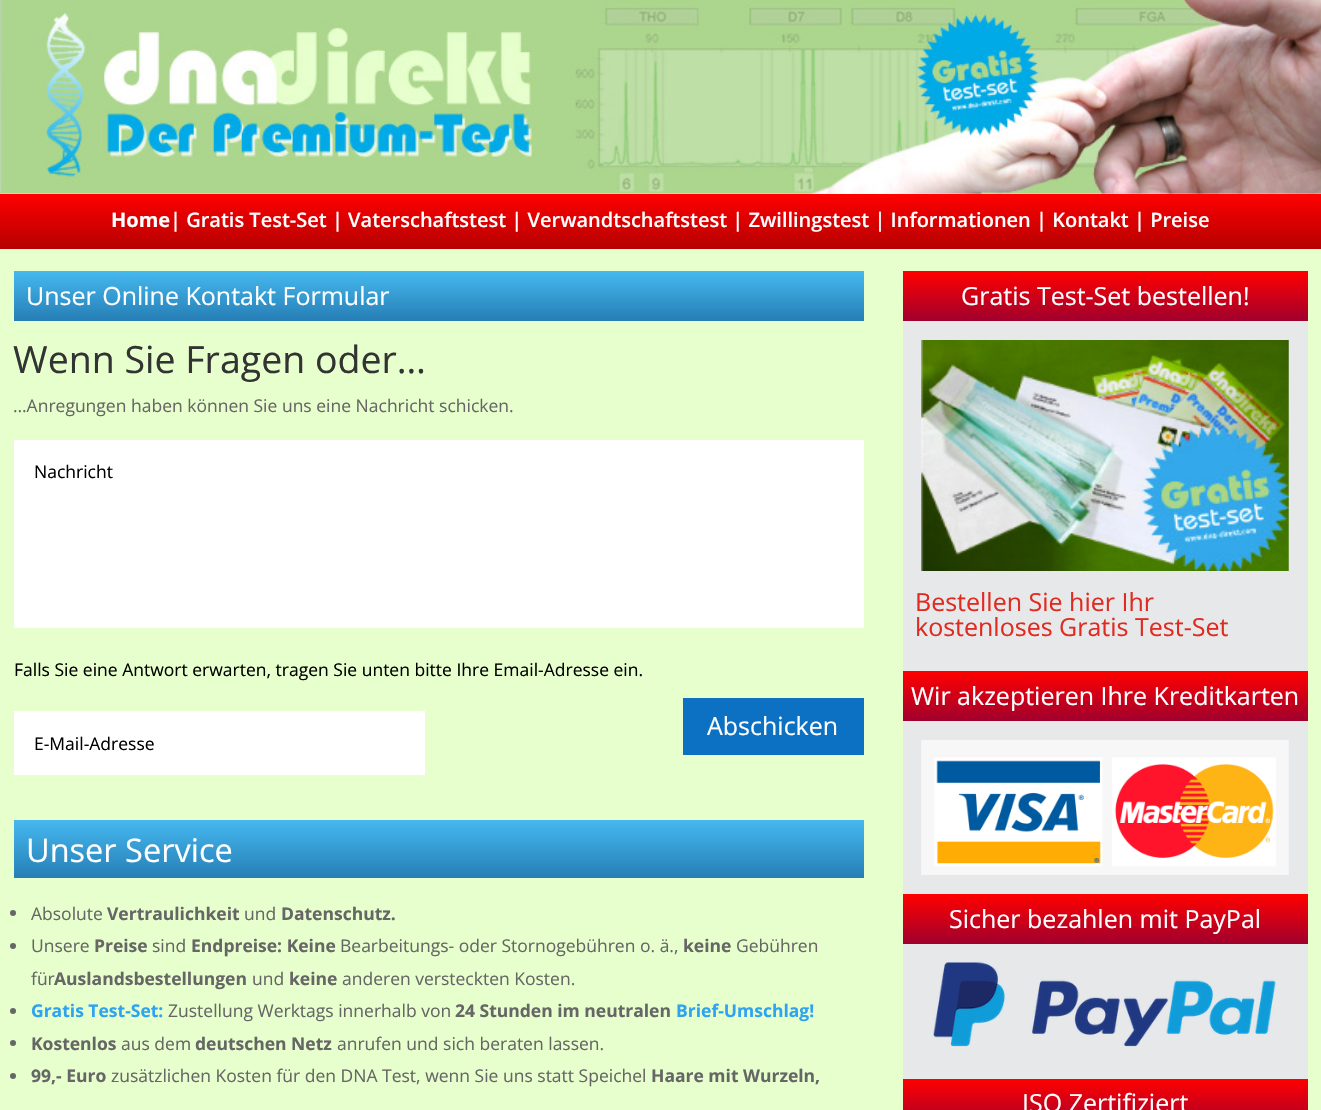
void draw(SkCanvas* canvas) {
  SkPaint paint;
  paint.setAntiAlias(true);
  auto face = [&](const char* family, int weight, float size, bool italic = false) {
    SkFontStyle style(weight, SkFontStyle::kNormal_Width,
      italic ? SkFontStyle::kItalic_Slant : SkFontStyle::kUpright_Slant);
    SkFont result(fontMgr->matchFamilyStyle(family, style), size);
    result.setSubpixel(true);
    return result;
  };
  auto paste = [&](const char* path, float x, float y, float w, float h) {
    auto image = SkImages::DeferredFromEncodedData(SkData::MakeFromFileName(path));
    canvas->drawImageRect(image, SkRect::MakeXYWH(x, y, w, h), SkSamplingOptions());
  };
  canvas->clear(0xffffffff);
  paste("img/1.png", 0, 0, 1321, 194);
  {
    const SkColor colors[] = {0xffff0000, 0xffb50101};
    const float stops[] = {0, 1};
    const SkPoint ends[] = {{661, 194}, {661, 249}};
    paint.setShader(SkGradientShader::MakeLinear(ends, colors, stops, 2, SkTileMode::kClamp));
    paint.setAlpha(255);
  }
  canvas->drawRect(SkRect::MakeXYWH(0, 194, 1321, 55), paint);
  paint.setShader(nullptr);
  paint.setColor(0xffe6ffcc);
  canvas->drawRect(SkRect::MakeXYWH(0, 249, 1321, 861), paint);
  {
    const SkColor colors[] = {0xff45b9ef, 0xff267eb5};
    const float stops[] = {0, 1};
    const SkPoint ends[] = {{439, 271}, {439, 321}};
    paint.setShader(SkGradientShader::MakeLinear(ends, colors, stops, 2, SkTileMode::kClamp));
    paint.setAlpha(255);
  }
  canvas->drawRect(SkRect::MakeXYWH(14, 271, 850, 50), paint);
  paint.setShader(nullptr);
  {
    const struct { float x, y, w, h; SkColor color; } items[] = {
      {14, 440, 850, 188, 0xffffffff},
      {683, 698, 181, 57, 0xff0c71c3},
      {14, 711, 411, 64, 0xffffffff},
    };
    for (auto [x, y, w, h, color] : items) {
      paint.setColor(color);
      canvas->drawRect(SkRect::MakeXYWH(x, y, w, h), paint);
    }
  }
  {
    const SkColor colors[] = {0xff45b9ef, 0xff267eb5};
    const float stops[] = {0, 1};
    const SkPoint ends[] = {{439, 820}, {439, 878}};
    paint.setShader(SkGradientShader::MakeLinear(ends, colors, stops, 2, SkTileMode::kClamp));
    paint.setAlpha(255);
  }
  canvas->drawRect(SkRect::MakeXYWH(14, 820, 850, 58), paint);
  paint.setShader(nullptr);
  paint.setColor(0xff666666);
  canvas->drawCircle(13, 913, 3, paint);
  canvas->drawCircle(13, 946, 3, paint);
  canvas->drawCircle(13, 1011, 3, paint);
  canvas->drawCircle(13, 1043, 3, paint);
  canvas->drawCircle(13, 1076, 3, paint);
  {
    const SkColor colors[] = {0xffff0000, 0xffa0002d};
    const float stops[] = {0, 1};
    const SkPoint ends[] = {{1105, 271}, {1105, 321}};
    paint.setShader(SkGradientShader::MakeLinear(ends, colors, stops, 2, SkTileMode::kClamp));
    paint.setAlpha(255);
  }
  canvas->drawRect(SkRect::MakeXYWH(903, 271, 405, 50), paint);
  paint.setShader(nullptr);
  paint.setColor(0xffe7e8ea);
  canvas->drawRect(SkRect::MakeXYWH(903, 321, 405, 350), paint);
  paste("img/2.png", 921, 340, 368, 231);
  {
    const SkColor colors[] = {0xffff0000, 0xffa0002d};
    const float stops[] = {0, 1};
    const SkPoint ends[] = {{1105, 671}, {1105, 721}};
    paint.setShader(SkGradientShader::MakeLinear(ends, colors, stops, 2, SkTileMode::kClamp));
    paint.setAlpha(255);
  }
  canvas->drawRect(SkRect::MakeXYWH(903, 671, 405, 50), paint);
  paint.setShader(nullptr);
  paint.setColor(0xffe7e8ea);
  canvas->drawRect(SkRect::MakeXYWH(903, 721, 405, 173), paint);
  paste("img/3.png", 921, 740, 368, 135);
  {
    const SkColor colors[] = {0xffff0000, 0xffa0002d};
    const float stops[] = {0, 1};
    const SkPoint ends[] = {{1105, 894}, {1105, 944}};
    paint.setShader(SkGradientShader::MakeLinear(ends, colors, stops, 2, SkTileMode::kClamp));
    paint.setAlpha(255);
  }
  canvas->drawRect(SkRect::MakeXYWH(903, 894, 405, 50), paint);
  paint.setShader(nullptr);
  paint.setColor(0xffe7e8ea);
  canvas->drawRect(SkRect::MakeXYWH(903, 944, 405, 135), paint);
  paste("img/4.png", 933, 962, 343, 85);
  {
    const SkColor colors[] = {0xffff0000, 0xffa0002d};
    const float stops[] = {0, 1};
    const SkPoint ends[] = {{1105, 1079}, {1105, 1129}};
    paint.setShader(SkGradientShader::MakeLinear(ends, colors, stops, 2, SkTileMode::kClamp));
    paint.setAlpha(255);
  }
  canvas->drawRect(SkRect::MakeXYWH(903, 1079, 405, 31), paint);
  auto f0 = face("Open Sans", 700, 20);
  paint.setShader(nullptr);
  paint.setColor(0xffffffff);
  canvas->drawString("Home", 111, 227, f0, paint);
  auto f1 = face("Open Sans", 600, 20);
  canvas->drawString("| Gratis Test-Set | Vaterschaftstest | Verwandtschaftstest | Zwillingstest | Informationen | Kontakt | Preise", 170, 227, f1, paint);
  auto f2 = face("Open Sans", 400, 25);
  canvas->drawString("Unser Online Kontakt Formular", 26, 305, f2, paint);
  auto f3 = face("Open Sans", 400, 37.5f);
  paint.setColor(0xff333333);
  canvas->drawString("Wenn Sie Fragen oder…", 13, 373, f3, paint);
  auto f4 = face("Open Sans", 400, 17.5f);
  paint.setColor(0xff666666);
  canvas->drawString("…Anregungen haben können Sie uns eine Nachricht schicken.", 13, 412, f4, paint);
  paint.setColor(0xff000000);
  canvas->drawString("Nachricht", 34, 478, f4, paint);
  canvas->drawString("Falls Sie eine Antwort erwarten, tragen Sie unten bitte Ihre Email-Adresse ein.", 14, 676, f4, paint);
  paint.setColor(0xffffffff);
  canvas->drawString("Abschicken", 707, 735, f2, paint);
  paint.setColor(0xff000000);
  canvas->drawString("E-Mail-Adresse", 34, 750, f4, paint);
  auto f5 = face("Open Sans", 400, 32.5f);
  paint.setColor(0xffffffff);
  canvas->drawString("Unser Service", 26, 862, f5, paint);
  paint.setColor(0xff666666);
  canvas->drawString("Absolute", 31, 920, f4, paint);
  auto f6 = face("Open Sans", 700, 17.5f);
  canvas->drawString("Vertraulichkeit", 107, 920, f6, paint);
  canvas->drawString("und", 244, 920, f4, paint);
  canvas->drawString("Datenschutz.", 281, 920, f6, paint);
  canvas->drawString("Unsere", 31, 952, f4, paint);
  canvas->drawString("Preise", 94, 952, f6, paint);
  canvas->drawString("sind", 152, 952, f4, paint);
  canvas->drawString("Endpreise: Keine", 191, 952, f6, paint);
  canvas->drawString("Bearbeitungs- oder Stornogebühren o. ä.,", 340, 952, f4, paint);
  canvas->drawString("keine", 683, 952, f6, paint);
  canvas->drawString("Gebühren", 736, 952, f4, paint);
  canvas->drawString("für", 31, 985, f4, paint);
  canvas->drawString("Auslandsbestellungen", 54, 985, f6, paint);
  canvas->drawString("und", 252, 985, f4, paint);
  canvas->drawString("keine", 289, 985, f6, paint);
  canvas->drawString("anderen versteckten Kosten.", 342, 985, f4, paint);
  paint.setColor(0xff2ea3f2);
  canvas->drawString("Gratis Test-Set:", 31, 1017, f6, paint);
  paint.setColor(0xff666666);
  canvas->drawString("Zustellung Werktags innerhalb von", 168, 1017, f4, paint);
  canvas->drawString("24 Stunden im neutralen", 455, 1017, f6, paint);
  paint.setColor(0xff2ea3f2);
  canvas->drawString("Brief-Umschlag!", 676, 1017, f6, paint);
  paint.setColor(0xff666666);
  canvas->drawString("Kostenlos", 31, 1050, f6, paint);
  canvas->drawString("aus dem", 121, 1050, f4, paint);
  canvas->drawString("deutschen Netz", 195, 1050, f6, paint);
  canvas->drawString("anrufen und sich beraten lassen.", 337, 1050, f4, paint);
  canvas->drawString("99,- Euro", 31, 1082, f6, paint);
  canvas->drawString("zusätzlichen Kosten für den DNA Test, wenn Sie uns statt Speichel", 111, 1082, f4, paint);
  canvas->drawString("Haare mit Wurzeln,", 651, 1082, f6, paint);
  paint.setColor(0xffffffff);
  canvas->drawString("Gratis Test-Set bestellen!", 961, 305, f2, paint);
  paint.setColor(0xffe02b20);
  canvas->drawString("Bestellen Sie hier Ihr", 915, 611, f2, paint);
  canvas->drawString("kostenloses Gratis Test-Set", 915, 636, f2, paint);
  paint.setColor(0xffffffff);
  {
    const struct { const char* s; float x, y; } items[] = {
      {"Wir akzeptieren Ihre Kreditkarten", 911, 705},
      {"Sicher bezahlen mit PayPal", 949, 928},
      {"ISO Zertifiziert", 1022, 1112},
    };
    for (auto [s, x, y] : items) {
      canvas->drawString(s, x, y, f2, paint);
    }
  }
}
